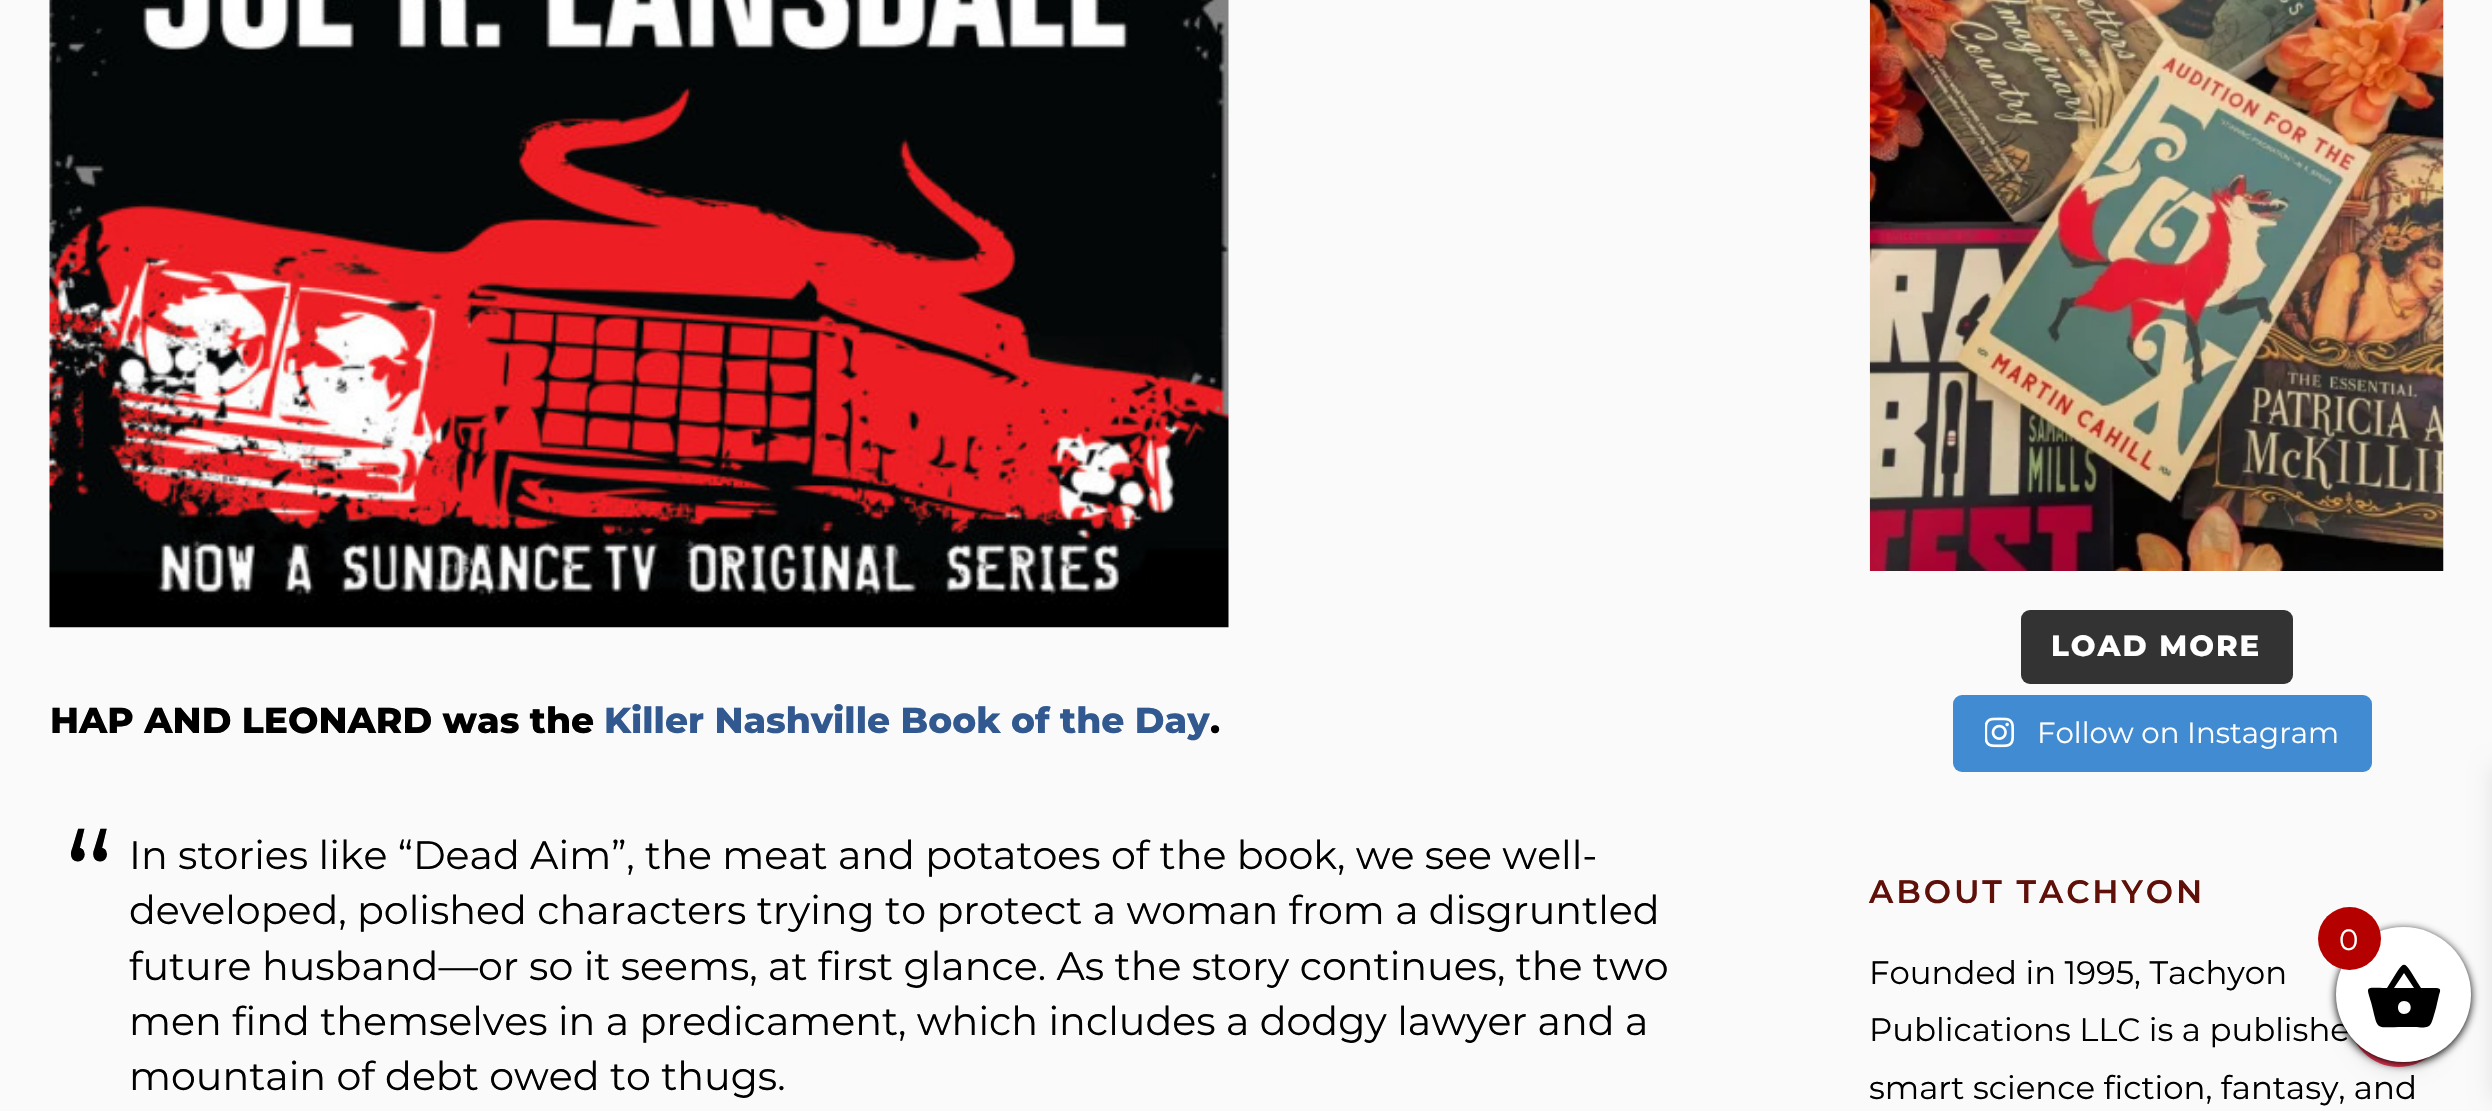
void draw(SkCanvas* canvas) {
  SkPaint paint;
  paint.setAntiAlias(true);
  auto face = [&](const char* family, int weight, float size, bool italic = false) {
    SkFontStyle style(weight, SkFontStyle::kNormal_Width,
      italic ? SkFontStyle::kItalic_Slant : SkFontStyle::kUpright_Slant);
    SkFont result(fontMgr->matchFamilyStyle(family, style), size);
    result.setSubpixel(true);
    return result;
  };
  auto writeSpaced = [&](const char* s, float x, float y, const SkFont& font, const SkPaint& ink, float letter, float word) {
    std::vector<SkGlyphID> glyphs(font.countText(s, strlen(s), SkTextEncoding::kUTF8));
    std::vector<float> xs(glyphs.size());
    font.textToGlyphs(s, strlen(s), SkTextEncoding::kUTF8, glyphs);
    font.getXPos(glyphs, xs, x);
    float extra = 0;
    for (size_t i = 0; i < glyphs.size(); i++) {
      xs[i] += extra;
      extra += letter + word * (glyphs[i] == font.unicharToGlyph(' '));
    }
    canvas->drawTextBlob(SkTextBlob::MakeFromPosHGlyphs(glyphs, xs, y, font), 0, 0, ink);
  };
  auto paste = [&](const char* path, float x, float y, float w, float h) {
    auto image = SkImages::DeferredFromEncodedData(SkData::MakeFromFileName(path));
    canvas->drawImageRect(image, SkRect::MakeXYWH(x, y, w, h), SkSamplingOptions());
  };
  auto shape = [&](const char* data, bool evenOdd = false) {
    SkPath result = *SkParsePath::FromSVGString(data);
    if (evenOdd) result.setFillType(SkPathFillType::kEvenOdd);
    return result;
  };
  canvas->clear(0xfffafafa);
  paste("img/1.png", 49, 0, 1180, 628);
  paste("img/2.png", 1869, 0, 575, 571);
  paint.setColor(0xff333333);
  canvas->drawRoundRect(SkRect::MakeXYWH(2021, 610, 272, 74), 9, 9, paint);
  paint.setColor(0xff408bd1);
  canvas->drawRoundRect(SkRect::MakeXYWH(1953, 695, 419, 77), 9, 9, paint);
  paste("img/3.png", 1985, 717, 29, 31);
  canvas->save();
  canvas->clipPath(shape("M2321 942H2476V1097H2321ZM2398.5 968C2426 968 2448 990 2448 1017.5C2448 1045 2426 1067 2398.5 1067C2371 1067 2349 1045 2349 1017.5C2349 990 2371 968 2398.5 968Z", true), true);
  paint.setColor(0x1f000000);
  paint.setMaskFilter(SkMaskFilter::MakeBlur(kNormal_SkBlurStyle, 9));
  canvas->drawRoundRect(SkRect::MakeXYWH(2349, 970, 99, 99), 49.5f, 49.5f, paint);
  paint.setMaskFilter(nullptr);
  canvas->restore();
  paint.setColor(0xccfb0930);
  canvas->drawCircle(2398.5f, 1017.5f, 49.5f, paint);
  paint.setColor(0xff000000);
  paint.setMaskFilter(SkMaskFilter::MakeBlur(kNormal_SkBlurStyle, 4.5f));
  canvas->drawRoundRect(SkRect::MakeXYWH(2336, 929, 135, 135), 67.5f, 67.5f, paint);
  paint.setMaskFilter(nullptr);
  paint.setColor(0x1a000000);
  paint.setMaskFilter(SkMaskFilter::MakeBlur(kNormal_SkBlurStyle, 11));
  canvas->drawRect(SkRect::MakeXYWH(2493, 767, 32, 333), paint);
  paint.setMaskFilter(nullptr);
  auto f0 = face("Montserrat", 800, 36);
  paint.setColor(0xff000000);
  canvas->drawString("HAP AND LEONARD was the", 50, 733, f0, paint);
  paint.setColor(0xff31588f);
  canvas->drawString("Killer Nashville Book of the Day", 604, 733, f0, paint);
  paint.setColor(0xff000000);
  canvas->drawString(".", 1210, 733, f0, paint);
  auto f1 = face("Montserrat", 400, 131);
  canvas->drawString("“", 64, 926, f1, paint);
  auto f2 = face("Montserrat", 400, 39.6f);
  {
    const struct { const char* s; float x, y; } items[] = {
      {"In stories like “Dead Aim”, the meat and potatoes of the book, we see well-", 129, 869},
      {"developed, polished characters trying to protect a woman from a disgruntled", 129, 924},
      {"future husband—or so it seems, at first glance. As the story continues, the two", 129, 980},
      {"men find themselves in a predicament, which includes a dodgy lawyer and a", 129, 1035},
      {"mountain of debt owed to thugs.", 129, 1090},
    };
    for (auto [s, x, y] : items) {
      canvas->drawString(s, x, y, f2, paint);
    }
  }
  auto f3 = face("Montserrat", 800, 29.25f);
  paint.setColor(0xffffffff);
  writeSpaced("LOAD MORE", 2051, 656, f3, paint, 2, 0);
  auto f4 = face("Montserrat", 400, 29.25f);
  canvas->drawString("Follow on Instagram", 2037, 743, f4, paint);
  auto f5 = face("Montserrat", 600, 32.4f);
  paint.setColor(0xff5e1009);
  writeSpaced("ABOUT TACHYON", 1869, 903, f5, paint, 2.9f, 0);
  auto f6 = face("Montserrat", 400, 32.4f);
  paint.setColor(0xff000000);
  {
    const struct { const char* s; float x, y; } items[] = {
      {"Founded in 1995, Tachyon", 1869, 984},
      {"Publications LLC is a publishe", 1869, 1041},
      {"smart science fiction, fantasy, and", 1869, 1099},
    };
    for (auto [s, x, y] : items) {
      canvas->drawString(s, x, y, f6, paint);
    }
  }
  paint.setColor(0xffffffff);
  canvas->drawCircle(2403.5f, 994.5f, 67.5f, paint);
  paint.setColor(0xff000000);
  canvas->drawPath(shape("M2404 1014C2413 1014 2413 1001 2404 1001C2396 1001 2396 1014 2404 1014ZM2394 988H2414L2404 973ZM2421 988H2434C2441 988 2441 989 2439 995L2436 1008C2429 1032 2433 1027 2404 1027C2373 1027 2379 1032 2371 1002C2366 985 2365 988 2387 988C2407 957 2401 957 2421 988Z"), paint);
  paint.setColor(0xffb50000);
  canvas->drawCircle(2349.5f, 938.5f, 31.5f, paint);
  paint.setColor(0xffffffff);
  canvas->drawString("0", 2339, 950, f4, paint);
}
